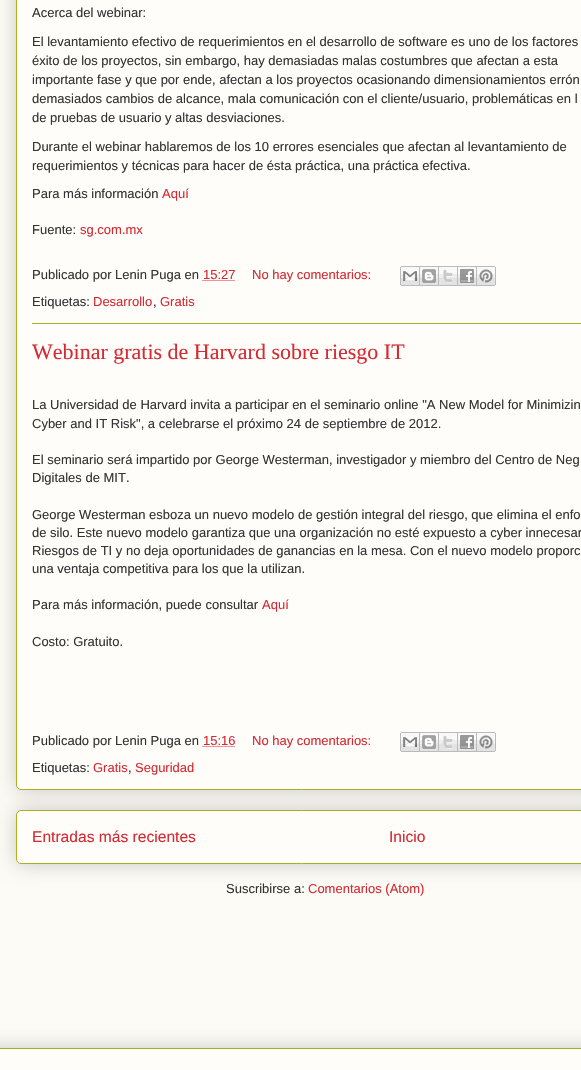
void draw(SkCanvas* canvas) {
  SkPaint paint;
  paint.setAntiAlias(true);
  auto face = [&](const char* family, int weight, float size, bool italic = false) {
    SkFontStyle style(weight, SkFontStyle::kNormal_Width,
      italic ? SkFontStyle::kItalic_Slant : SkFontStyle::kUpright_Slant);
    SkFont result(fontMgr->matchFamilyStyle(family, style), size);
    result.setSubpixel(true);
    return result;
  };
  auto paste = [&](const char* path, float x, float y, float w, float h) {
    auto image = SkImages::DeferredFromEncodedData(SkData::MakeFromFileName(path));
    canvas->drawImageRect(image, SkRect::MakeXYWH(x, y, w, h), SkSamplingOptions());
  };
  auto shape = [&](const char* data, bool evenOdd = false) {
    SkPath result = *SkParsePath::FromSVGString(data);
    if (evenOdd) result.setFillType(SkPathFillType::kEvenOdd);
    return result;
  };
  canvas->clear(0xfffcfbf5);
  paint.setColor(0x33000000);
  paint.setMaskFilter(SkMaskFilter::MakeBlur(kNormal_SkBlurStyle, 10));
  canvas->drawRoundRect(SkRect::MakeXYWH(16, 810, 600, 54), 5, 5, paint);
  paint.setMaskFilter(nullptr);
  paint.setColor(0xfffefdfa);
  canvas->drawRoundRect(SkRect::MakeXYWH(16.5f, 810.5f, 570, 53), 4.5f, 4.5f, paint);
  paint.setStroke(true);
  paint.setStrokeWidth(1);
  paint.setColor(0xffaab123);
  canvas->drawRoundRect(SkRect::MakeXYWH(16.5f, 810.5f, 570, 53), 4.5f, 4.5f, paint);
  paint.setStroke(false);
  paint.setColor(0x33000000);
  paint.setMaskFilter(SkMaskFilter::MakeBlur(kNormal_SkBlurStyle, 10));
  canvas->drawRoundRect(SkRect::MakeXYWH(16, -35, 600, 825), 5, 5, paint);
  paint.setMaskFilter(nullptr);
  paint.setColor(0xfffefdfa);
  canvas->drawRoundRect(SkRect::MakeXYWH(16.5f, -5.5f, 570, 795), 4.5f, 4.5f, paint);
  paint.setStroke(true);
  paint.setColor(0xffaab123);
  canvas->drawRoundRect(SkRect::MakeXYWH(16.5f, -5.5f, 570, 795), 4.5f, 4.5f, paint);
  paint.setColor(0xffd52a33);
  paint.setPathEffect(SkDashPathEffect::Make({{1, 1}}, 0));
  canvas->drawPath(shape("M202.5 280.5H235"), paint);
  paint.setPathEffect(nullptr);
  paste("img/1.png", 400, 266, 20, 20);
  paste("img/2.png", 420, 266, 19, 20);
  paste("img/3.png", 439, 266, 19, 20);
  paste("img/4.png", 458, 266, 19, 20);
  paste("img/5.png", 477, 266, 19, 20);
  paint.setStroke(false);
  paint.setColor(0xffaab123);
  canvas->drawRect(SkRect::MakeXYWH(32, 323, 549, 1), paint);
  paint.setStroke(true);
  paint.setColor(0xffd52a33);
  paint.setPathEffect(SkDashPathEffect::Make({{1, 1}}, 0));
  canvas->drawPath(shape("M202.5 746.5H235"), paint);
  paint.setPathEffect(nullptr);
  paste("img/1.png", 400, 732, 20, 20);
  paste("img/2.png", 420, 732, 19, 20);
  paste("img/3.png", 439, 732, 19, 20);
  paste("img/4.png", 458, 732, 19, 20);
  paste("img/5.png", 477, 732, 19, 20);
  paint.setStroke(false);
  paint.setColor(0x33000000);
  paint.setMaskFilter(SkMaskFilter::MakeBlur(kNormal_SkBlurStyle, 10));
  canvas->drawRect(SkRect::MakeXYWH(-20, 1048, 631, 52), paint);
  paint.setMaskFilter(nullptr);
  paint.setColor(0xfffefdfa);
  canvas->drawRect(SkRect::MakeXYWH(0, 1049, 581, 21), paint);
  paint.setColor(0xffaab123);
  canvas->drawRect(SkRect::MakeXYWH(0, 1048, 581, 1), paint);
  auto f0 = face("Liberation Sans", 400, 13);
  paint.setColor(0xff333333);
  {
    const struct { const char* s; float x, y; } items[] = {
      {"Acerca del webinar:", 32, 17},
      {"El levantamiento efectivo de requerimientos en el desarrollo de software es uno de los factores", 32, 46},
      {"éxito de los proyectos, sin embargo, hay demasiadas malas costumbres que afectan a esta", 32, 65},
      {"importante fase y que por ende, afectan a los proyectos ocasionando dimensionamientos errón", 32, 84},
      {"demasiados cambios de alcance, mala comunicación con el cliente/usuario, problemáticas en l", 32, 103},
      {"de pruebas de usuario y altas desviaciones.", 32, 122},
      {"Durante el webinar hablaremos de los 10 errores esenciales que afectan al levantamiento de", 32, 151},
      {"requerimientos y técnicas para hacer de ésta práctica, una práctica efectiva.", 32, 170},
      {"Para más información", 32, 198},
    };
    for (auto [s, x, y] : items) {
      canvas->drawString(s, x, y, f0, paint);
    }
  }
  paint.setColor(0xffd52a33);
  canvas->drawString("Aquí", 162, 198, f0, paint);
  paint.setColor(0xff333333);
  canvas->drawString("Fuente:", 32, 234, f0, paint);
  paint.setColor(0xffd52a33);
  canvas->drawString("sg.com.mx", 80, 234, f0, paint);
  paint.setColor(0xff333333);
  canvas->drawString("Publicado por Lenin Puga en", 32, 279, f0, paint);
  paint.setColor(0xffd52a33);
  canvas->drawString("15:27", 203, 279, f0, paint);
  canvas->drawString("No hay comentarios:", 252, 279, f0, paint);
  paint.setColor(0xff333333);
  canvas->drawString("Etiquetas:", 32, 306, f0, paint);
  paint.setColor(0xffd52a33);
  canvas->drawString("Desarrollo", 93, 306, f0, paint);
  paint.setColor(0xff333333);
  canvas->drawString(",", 153, 306, f0, paint);
  paint.setColor(0xffd52a33);
  canvas->drawString("Gratis", 160, 306, f0, paint);
  auto f1 = face("Liberation Serif", 400, 22);
  canvas->drawString("Webinar gratis de Harvard sobre riesgo IT", 32, 359, f1, paint);
  paint.setColor(0xff333333);
  {
    const struct { const char* s; float x, y; } items[] = {
      {"La Universidad de Harvard invita a participar en el seminario online \"A New Model for Minimizin", 32, 409},
      {"Cyber and IT Risk\", a celebrarse el próximo 24 de septiembre de 2012.", 32, 428},
      {"El seminario será impartido por George Westerman, investigador y miembro del Centro de Neg", 32, 464},
      {"Digitales de MIT.", 32, 482},
      {"George Westerman esboza un nuevo modelo de gestión integral del riesgo, que elimina el enfo", 32, 519},
      {"de silo. Este nuevo modelo garantiza que una organización no esté expuesto a cyber innecesar", 32, 537},
      {"Riesgos de TI y no deja oportunidades de ganancias en la mesa. Con el nuevo modelo proporc", 32, 555},
      {"una ventaja competitiva para los que la utilizan.", 32, 573},
      {"Para más información, puede consultar", 32, 609},
    };
    for (auto [s, x, y] : items) {
      canvas->drawString(s, x, y, f0, paint);
    }
  }
  paint.setColor(0xffd52a33);
  canvas->drawString("Aquí", 262, 609, f0, paint);
  paint.setColor(0xff333333);
  canvas->drawString("Costo: Gratuito.", 32, 646, f0, paint);
  canvas->drawString("Publicado por Lenin Puga en", 32, 745, f0, paint);
  paint.setColor(0xffd52a33);
  canvas->drawString("15:16", 203, 745, f0, paint);
  canvas->drawString("No hay comentarios:", 252, 745, f0, paint);
  paint.setColor(0xff333333);
  canvas->drawString("Etiquetas:", 32, 772, f0, paint);
  paint.setColor(0xffd52a33);
  canvas->drawString("Gratis", 93, 772, f0, paint);
  paint.setColor(0xff333333);
  canvas->drawString(",", 128, 772, f0, paint);
  paint.setColor(0xffd52a33);
  canvas->drawString("Seguridad", 135, 772, f0, paint);
  auto f2 = face("Liberation Sans", 400, 15.6f);
  canvas->drawString("Entradas más recientes", 32, 842, f2, paint);
  canvas->drawString("Inicio", 389, 842, f2, paint);
  paint.setColor(0xff333333);
  canvas->drawString("Suscribirse a:", 226, 893, f0, paint);
  paint.setColor(0xffd52a33);
  canvas->drawString("Comentarios (Atom)", 308, 893, f0, paint);
}
